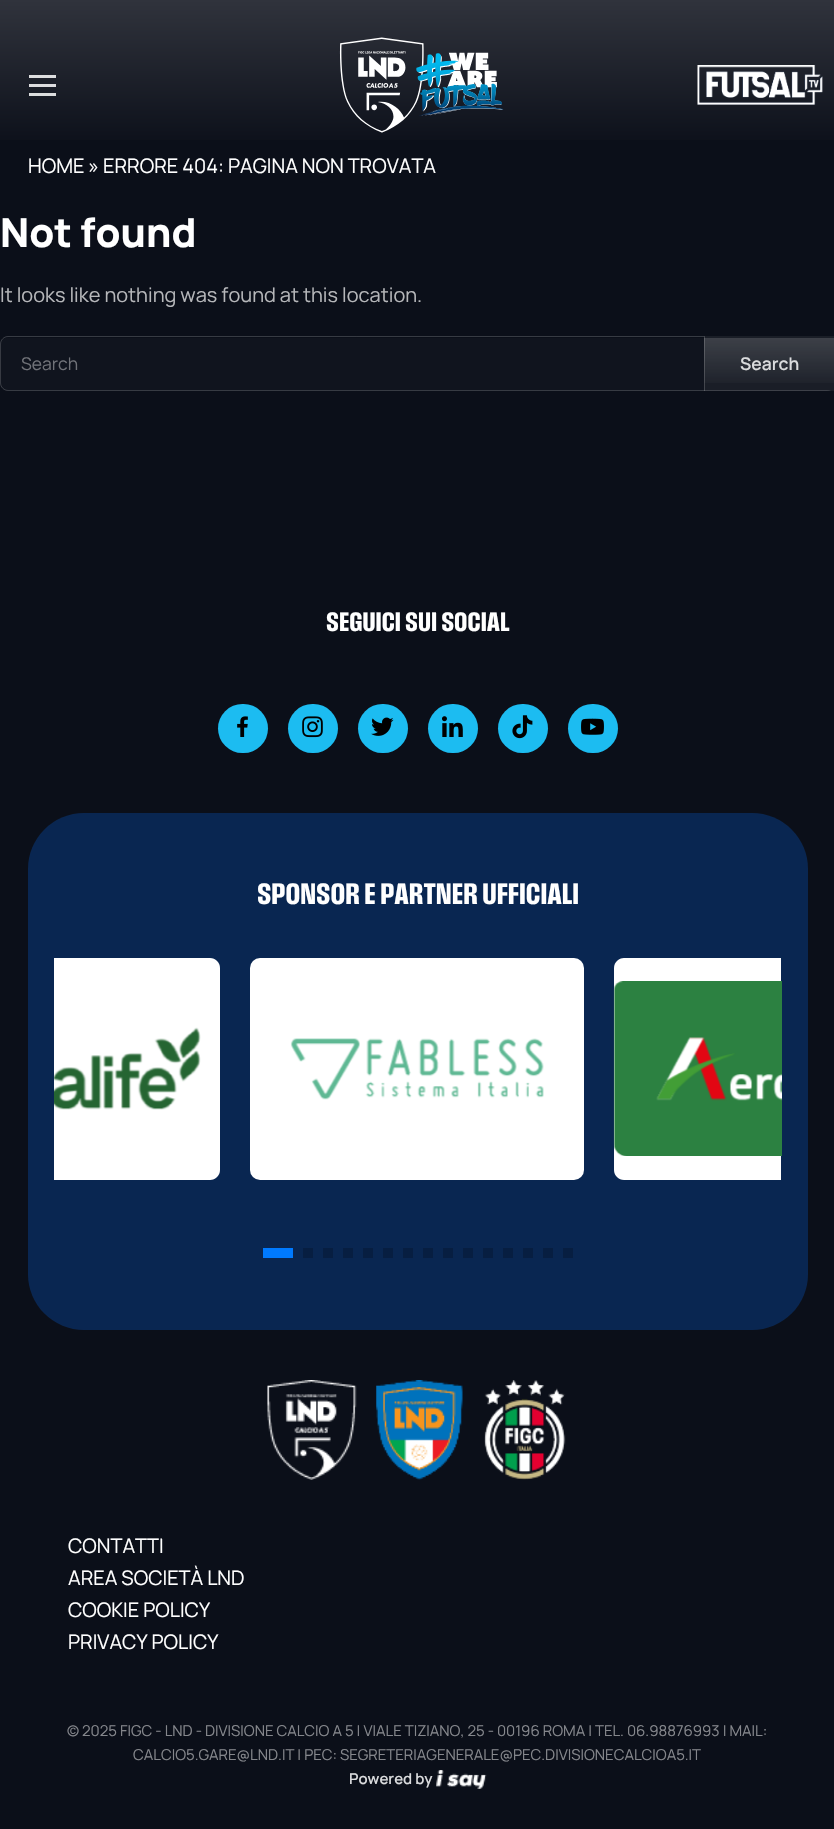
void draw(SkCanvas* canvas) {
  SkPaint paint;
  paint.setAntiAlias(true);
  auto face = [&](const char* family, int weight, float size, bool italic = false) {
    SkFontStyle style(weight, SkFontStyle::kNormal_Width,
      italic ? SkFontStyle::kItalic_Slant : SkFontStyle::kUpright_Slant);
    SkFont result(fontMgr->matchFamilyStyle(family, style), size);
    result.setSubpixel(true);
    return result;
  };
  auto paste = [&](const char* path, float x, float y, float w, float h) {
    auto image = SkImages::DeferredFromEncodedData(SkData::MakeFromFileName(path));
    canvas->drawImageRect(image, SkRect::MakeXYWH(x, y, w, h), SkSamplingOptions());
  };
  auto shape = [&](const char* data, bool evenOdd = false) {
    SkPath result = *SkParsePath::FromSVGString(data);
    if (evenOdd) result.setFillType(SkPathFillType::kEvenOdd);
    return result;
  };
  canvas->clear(0xff0b0f19);
  {
    const SkColor colors[] = {0xff30333c, 0xff0b0f19};
    const float stops[] = {0, 1};
    const SkPoint ends[] = {{418, 0}, {418, 150}};
    paint.setShader(SkGradientShader::MakeLinear(ends, colors, stops, 2, SkTileMode::kClamp));
    paint.setAlpha(255);
  }
  canvas->drawRect(SkRect::MakeXYWH(0, 0, 834, 140), paint);
  paint.setShader(nullptr);
  {
    const struct { float x, y, w, h; SkColor color; } items[] = {
      {29, 84, 27, 3, 0xffdddddf},
      {29, 75, 27, 3, 0xffdddedf},
      {29, 93, 27, 3, 0xffdcddde},
    };
    for (auto [x, y, w, h, color] : items) {
      paint.setColor(color);
      canvas->drawRect(SkRect::MakeXYWH(x, y, w, h), paint);
    }
  }
  paste("img/1.png", 339, 37, 165, 96);
  paste("img/2.png", 697, 65, 126, 40);
  paint.setColor(0xff10141e);
  canvas->drawPath(shape("M7 338H704V390H7C3.5 390 1 387.5 1 384V344C1 340.5 3.5 338 7 338Z"), paint);
  paint.setStroke(true);
  paint.setStrokeWidth(1);
  paint.setColor(0x2effffff);
  canvas->drawPath(shape("M8 336.5H704.5V390.5H8C4 390.5 .5 387 .5 383V344C.5 340 4 336.5 8 336.5Z"), paint);
  paint.setStroke(false);
  paint.setColor(0x0fffffff);
  canvas->drawRect(SkRect::MakeXYWH(704, 336, 130, 55), paint);
  {
    const SkColor colors[] = {0x26ffffff, 0x00ffffff};
    const float stops[] = {0, 1};
    const SkPoint ends[] = {{769, 338}, {769, 390}};
    paint.setShader(SkGradientShader::MakeLinear(ends, colors, stops, 2, SkTileMode::kClamp));
    paint.setAlpha(255);
  }
  canvas->drawRect(SkRect::MakeXYWH(704, 338, 130, 45), paint);
  canvas->save();
  canvas->clipPath(shape("M704 336H827C831.5 336 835 339.5 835 344V383C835 387.5 831.5 391 827 391H704Z"), true);
  {
    const SkColor colors[] = {0x26ffffff, 0x00ffffff};
    const float stops[] = {0, 1};
    const SkPoint ends[] = {{769, 390}, {769, 443}};
    paint.setShader(SkGradientShader::MakeLinear(ends, colors, stops, 2, SkTileMode::kClamp));
    paint.setAlpha(255);
  }
  canvas->drawRect(SkRect::MakeXYWH(704, 390, 130, 1), paint);
  canvas->restore();
  paint.setShader(nullptr);
  paint.setColor(0xff1cbcf1);
  canvas->drawRoundRect(SkRect::MakeXYWH(218, 704, 50, 49), 24.5f, 24.5f, paint);
  paste("img/3.png", 237, 716, 11, 21);
  canvas->drawRoundRect(SkRect::MakeXYWH(288, 704, 50, 49), 24.5f, 24.5f, paint);
  paste("img/4.png", 302, 716, 21, 22);
  canvas->drawRoundRect(SkRect::MakeXYWH(358, 704, 50, 49), 24.5f, 24.5f, paint);
  paste("img/5.png", 371, 717, 23, 19);
  canvas->drawRoundRect(SkRect::MakeXYWH(428, 704, 50, 49), 24.5f, 24.5f, paint);
  paste("img/6.png", 442, 716, 21, 21);
  canvas->drawRoundRect(SkRect::MakeXYWH(498, 704, 50, 49), 24.5f, 24.5f, paint);
  paste("img/7.png", 512, 715, 21, 24);
  canvas->drawRoundRect(SkRect::MakeXYWH(568, 704, 50, 49), 24.5f, 24.5f, paint);
  paste("img/8.png", 581, 718, 23, 17);
  paint.setColor(0xff092651);
  canvas->drawRoundRect(SkRect::MakeXYWH(28, 813, 780, 517), 56, 56, paint);
  paint.setColor(0xffffffff);
  canvas->drawPath(shape("M54 958H210C215.5 958 220 962.5 220 968V1170C220 1175.5 215.5 1180 210 1180H54Z"), paint);
  paste("img/9.png", 54, 1027, 147, 83);
  canvas->drawRoundRect(SkRect::MakeXYWH(250, 958, 334, 222), 10, 10, paint);
  paste("img/10.png", 290, 1038, 254, 62);
  canvas->drawPath(shape("M624 958H781V1180H624C618.5 1180 614 1175.5 614 1170V968C614 962.5 618.5 958 624 958Z"), paint);
  paste("img/11.png", 613, 981, 169, 175);
  {
    const struct { float x, y, w, h; SkColor color; } items[] = {
      {263, 1248, 30, 10, 0xff007aff},
      {303, 1248, 10, 10, 0xff071e41},
      {323, 1248, 10, 10, 0xff071e41},
      {343, 1248, 10, 10, 0xff071e41},
      {363, 1248, 10, 10, 0xff071e41},
      {383, 1248, 10, 10, 0xff071e41},
      {403, 1248, 10, 10, 0xff071e41},
      {423, 1248, 10, 10, 0xff071e41},
      {443, 1248, 10, 10, 0xff071e41},
      {463, 1248, 10, 10, 0xff071e41},
      {483, 1248, 10, 10, 0xff071e41},
      {503, 1248, 10, 10, 0xff071e41},
      {523, 1248, 10, 10, 0xff071e41},
      {543, 1248, 10, 10, 0xff071e41},
      {563, 1248, 10, 10, 0xff071e41},
    };
    for (auto [x, y, w, h, color] : items) {
      paint.setColor(color);
      canvas->drawRect(SkRect::MakeXYWH(x, y, w, h), paint);
    }
  }
  paste("img/12.png", 267, 1380, 90, 100);
  paste("img/13.png", 376, 1380, 87, 100);
  paste("img/14.png", 484, 1380, 82, 100);
  paste("img/15.png", 436, 1770, 51, 19);
  auto f0 = face("Manrope", 400, 20);
  paint.setColor(0xffffffff);
  canvas->drawString("HOME » ERRORE 404: PAGINA NON TROVATA", 28, 173, f0, paint);
  auto f1 = face("Manrope", 800, 40);
  canvas->drawString("Not found", 0, 247, f1, paint);
  paint.setColor(0xffb6b7ba);
  canvas->drawString("It looks like nothing was found at this location.", 0, 302, f0, paint);
  auto f2 = face("Manrope", 400, 17.5f);
  paint.setColor(0xff707278);
  canvas->drawString("Search", 21, 370, f2, paint);
  auto f3 = face("Manrope", 600, 17.5f);
  paint.setColor(0xffdadbdd);
  canvas->drawString("Search", 740, 370, f3, paint);
  auto f4 = face("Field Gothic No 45", 700, 28);
  paint.setColor(0xffffffff);
  canvas->drawString("SEGUICI SUI SOCIAL", 326, 631, f4, paint);
  auto f5 = face("Field Gothic No 45", 700, 31);
  canvas->drawString("SPONSOR E PARTNER UFFICIALI", 257, 904, f5, paint);
  {
    const struct { const char* s; float x, y; } items[] = {
      {"CONTATTI", 68, 1553},
      {"AREA SOCIETÀ LND", 68, 1585},
      {"COOKIE POLICY", 68, 1617},
      {"PRIVACY POLICY", 68, 1649},
    };
    for (auto [s, x, y] : items) {
      canvas->drawString(s, x, y, f0, paint);
    }
  }
  auto f6 = face("Manrope", 400, 15);
  paint.setColor(0xff85878c);
  canvas->drawString("© 2025 FIGC - LND - DIVISIONE CALCIO A 5 | VIALE TIZIANO, 25 - 00196 ROMA | TEL. 06.98876993 | MAIL:", 67, 1736, f6, paint);
  canvas->drawString("CALCIO5.GARE@LND.IT | PEC: SEGRETERIAGENERALE@PEC.DIVISIONECALCIOA5.IT", 133, 1760, f6, paint);
  auto f7 = face("Manrope", 600, 15);
  paint.setColor(0xffdadbdd);
  canvas->drawString("Powered by", 349, 1784, f7, paint);
}
